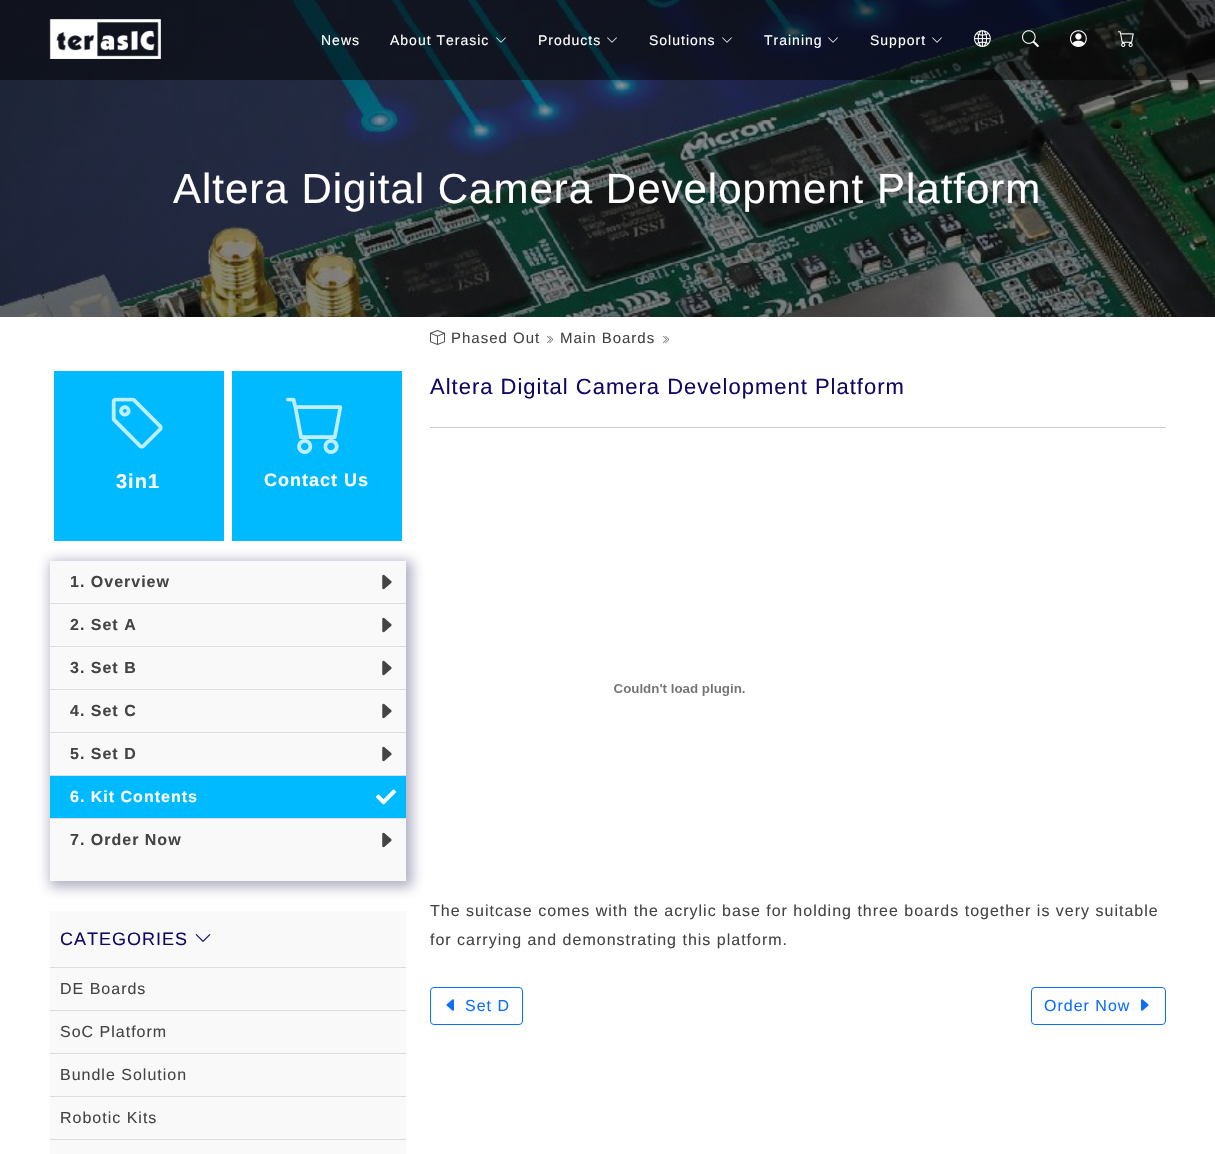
void draw(SkCanvas* canvas) {
  SkPaint paint;
  paint.setAntiAlias(true);
  auto face = [&](const char* family, int weight, float size, bool italic = false) {
    SkFontStyle style(weight, SkFontStyle::kNormal_Width,
      italic ? SkFontStyle::kItalic_Slant : SkFontStyle::kUpright_Slant);
    SkFont result(fontMgr->matchFamilyStyle(family, style), size);
    result.setSubpixel(true);
    return result;
  };
  auto writeSpaced = [&](const char* s, float x, float y, const SkFont& font, const SkPaint& ink, float letter, float word) {
    std::vector<SkGlyphID> glyphs(font.countText(s, strlen(s), SkTextEncoding::kUTF8));
    std::vector<float> xs(glyphs.size());
    font.textToGlyphs(s, strlen(s), SkTextEncoding::kUTF8, glyphs);
    font.getXPos(glyphs, xs, x);
    float extra = 0;
    for (size_t i = 0; i < glyphs.size(); i++) {
      xs[i] += extra;
      extra += letter + word * (glyphs[i] == font.unicharToGlyph(' '));
    }
    canvas->drawTextBlob(SkTextBlob::MakeFromPosHGlyphs(glyphs, xs, y, font), 0, 0, ink);
  };
  auto paste = [&](const char* path, float x, float y, float w, float h) {
    auto image = SkImages::DeferredFromEncodedData(SkData::MakeFromFileName(path));
    canvas->drawImageRect(image, SkRect::MakeXYWH(x, y, w, h), SkSamplingOptions());
  };
  canvas->clear(0xffffffff);
  paste("img/11.png", 0, 0, 1215, 317);
  paint.setColor(0x80000000);
  canvas->drawRect(SkRect::MakeXYWH(0, 0, 1215, 80), paint);
  paste("img/1.png", 49, 19, 112, 40);
  paste("img/2.png", 496, 37, 10, 6);
  paste("img/3.png", 607, 37, 10, 6);
  paste("img/4.png", 722, 37, 10, 6);
  paste("img/5.png", 828, 37, 10, 6);
  paste("img/6.png", 932, 37, 10, 6);
  paste("img/7.png", 974, 30, 17, 17);
  paste("img/8.png", 1022, 30, 17, 17);
  paste("img/9.png", 1070, 30, 17, 17);
  paste("img/10.png", 1118, 31, 16, 16);
  paste("img/12.png", 430, 330, 15, 15);
  paste("img/13.png", 547, 335, 7, 9);
  paste("img/13.png", 663, 335, 7, 9);
  paint.setColor(0xff00baff);
  canvas->drawRect(SkRect::MakeXYWH(54, 371, 170, 170), paint);
  paste("img/14.png", 111, 397, 52, 52);
  canvas->drawRect(SkRect::MakeXYWH(232, 371, 170, 170), paint);
  paste("img/15.png", 286, 397, 57, 57);
  paint.setColor(0x66333366);
  paint.setMaskFilter(SkMaskFilter::MakeBlur(kNormal_SkBlurStyle, 6));
  canvas->drawRect(SkRect::MakeXYWH(50, 561, 362, 326), paint);
  paint.setMaskFilter(nullptr);
  paint.setColor(0xfff9f9f9);
  canvas->drawRect(SkRect::MakeXYWH(50, 561, 356, 320), paint);
  paint.setColor(0xffdddddd);
  canvas->drawRect(SkRect::MakeXYWH(50, 603, 356, 1), paint);
  paste("img/16.png", 382, 574, 10, 16);
  canvas->drawRect(SkRect::MakeXYWH(50, 646, 356, 1), paint);
  paste("img/16.png", 382, 617, 10, 16);
  canvas->drawRect(SkRect::MakeXYWH(50, 689, 356, 1), paint);
  paste("img/16.png", 382, 660, 10, 16);
  canvas->drawRect(SkRect::MakeXYWH(50, 732, 356, 1), paint);
  paste("img/16.png", 382, 703, 10, 16);
  canvas->drawRect(SkRect::MakeXYWH(50, 775, 356, 1), paint);
  paste("img/16.png", 382, 746, 10, 16);
  canvas->drawRect(SkRect::MakeXYWH(50, 818, 356, 1), paint);
  paint.setColor(0xff00baff);
  canvas->drawRect(SkRect::MakeXYWH(50, 776, 356, 42), paint);
  paste("img/17.png", 376, 789, 20, 16);
  paste("img/16.png", 382, 832, 10, 16);
  paint.setColor(0xfff9f9f9);
  canvas->drawRect(SkRect::MakeXYWH(50, 911, 356, 243), paint);
  paint.setColor(0xffdddddd);
  canvas->drawRect(SkRect::MakeXYWH(50, 967, 356, 1), paint);
  paste("img/18.png", 195, 934, 16, 8);
  {
    const struct { float x, y, w, h; SkColor color; } items[] = {
      {50, 1010, 356, 1, 0xffdddddd},
      {50, 1053, 356, 1, 0xffdddddd},
      {50, 1096, 356, 1, 0xffdddddd},
      {50, 1139, 356, 1, 0xffdddddd},
      {430, 427, 736, 1, 0xffcccccc},
    };
    for (auto [x, y, w, h, color] : items) {
      paint.setColor(color);
      canvas->drawRect(SkRect::MakeXYWH(x, y, w, h), paint);
    }
  }
  paste("img/19.png", 614, 684, 131, 12);
  paint.setStroke(true);
  paint.setStrokeWidth(1);
  paint.setColor(0xff0d6efd);
  canvas->drawRoundRect(SkRect::MakeXYWH(430.5f, 987.5f, 92, 37), 3.5f, 3.5f, paint);
  paste("img/20.png", 446, 999, 8, 12);
  canvas->drawRoundRect(SkRect::MakeXYWH(1031.5f, 987.5f, 134, 37), 3.5f, 3.5f, paint);
  paste("img/21.png", 1141, 999, 8, 12);
  auto f0 = face("Liberation Sans", 400, 14);
  paint.setStroke(false);
  paint.setColor(0xffffffff);
  {
    const struct { const char* s; float x, y; } items[] = {
      {"News", 321, 45},
      {"About Terasic", 390, 45},
      {"Products", 538, 45},
      {"Solutions", 649, 45},
      {"Training", 764, 45},
      {"Support", 870, 45},
    };
    for (auto [s, x, y] : items) {
      writeSpaced(s, x, y, f0, paint, 1, 0);
    }
  }
  auto f1 = face("Liberation Sans", 400, 42);
  writeSpaced("Altera Digital Camera Development Platform", 173, 203, f1, paint, 1, 0);
  auto f2 = face("Liberation Sans", 400, 15);
  paint.setColor(0xff444444);
  writeSpaced("Phased Out", 451, 343, f2, paint, 1, 0);
  writeSpaced("Main Boards", 560, 343, f2, paint, 1, 0);
  auto f3 = face("Liberation Sans", 700, 20);
  paint.setColor(0xffffffff);
  writeSpaced("3in1", 116, 488, f3, paint, 1, 0);
  auto f4 = face("Liberation Sans", 700, 18);
  writeSpaced("Contact Us", 264, 486, f4, paint, 1, 0);
  auto f5 = face("Liberation Sans", 700, 16);
  paint.setColor(0xff444444);
  {
    const struct { const char* s; float x, y; } items[] = {
      {"1. Overview", 70, 587},
      {"2. Set A", 70, 630},
      {"3. Set B", 70, 673},
      {"4. Set C", 70, 716},
      {"5. Set D", 70, 759},
    };
    for (auto [s, x, y] : items) {
      writeSpaced(s, x, y, f5, paint, 1, 0);
    }
  }
  paint.setColor(0xffffffff);
  writeSpaced("6. Kit Contents", 70, 802, f5, paint, 1, 0);
  paint.setColor(0xff444444);
  writeSpaced("7. Order Now", 70, 845, f5, paint, 1, 0);
  auto f6 = face("Liberation Sans", 400, 18);
  paint.setColor(0xff0f0864);
  writeSpaced("CATEGORIES", 60, 945, f6, paint, 1, 0);
  auto f7 = face("Liberation Sans", 400, 16);
  paint.setColor(0xff444444);
  {
    const struct { const char* s; float x, y; } items[] = {
      {"DE Boards", 60, 994},
      {"SoC Platform", 60, 1037},
      {"Bundle Solution", 60, 1080},
      {"Robotic Kits", 60, 1123},
    };
    for (auto [s, x, y] : items) {
      writeSpaced(s, x, y, f7, paint, 1, 0);
    }
  }
  auto f8 = face("Liberation Sans", 400, 22);
  paint.setColor(0xff0f0864);
  writeSpaced("Altera Digital Camera Development Platform", 430, 394, f8, paint, 1, 0);
  paint.setColor(0xff444444);
  writeSpaced("The suitcase comes with the acrylic base for holding three boards together is very suitable", 430, 916, f7, paint, 1, 0);
  writeSpaced("for carrying and demonstrating this platform.", 430, 945, f7, paint, 1, 0);
  paint.setColor(0xff0d6efd);
  writeSpaced("Set D", 465, 1011, f7, paint, 1, 0);
  writeSpaced("Order Now", 1044, 1011, f7, paint, 1, 0);
}
